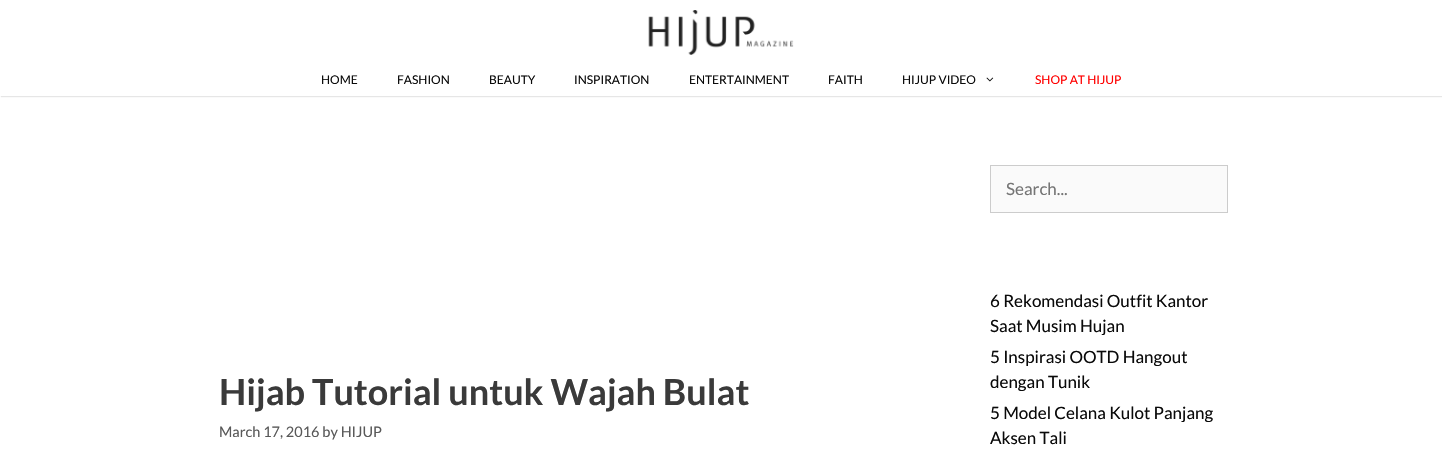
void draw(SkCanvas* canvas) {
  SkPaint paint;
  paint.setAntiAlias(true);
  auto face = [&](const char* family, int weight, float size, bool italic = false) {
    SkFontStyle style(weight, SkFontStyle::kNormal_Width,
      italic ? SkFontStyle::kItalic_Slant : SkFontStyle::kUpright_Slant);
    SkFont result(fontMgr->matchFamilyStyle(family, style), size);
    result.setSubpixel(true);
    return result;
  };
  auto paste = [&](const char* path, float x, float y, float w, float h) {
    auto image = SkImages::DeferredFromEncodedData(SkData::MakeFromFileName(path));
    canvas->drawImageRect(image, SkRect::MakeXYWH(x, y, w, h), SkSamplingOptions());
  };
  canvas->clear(0xffffffff);
  canvas->save();
  canvas->clipRect(SkRect::MakeXYWH(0, 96, 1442, 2));
  paint.setColor(0xffe6e6e6);
  paint.setMaskFilter(SkMaskFilter::MakeBlur(kNormal_SkBlurStyle, 0.5f));
  canvas->drawRect(SkRect::MakeXYWH(1, 1, 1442, 96), paint);
  paint.setMaskFilter(nullptr);
  canvas->restore();
  paste("img/1.png", 648, 10, 146, 45);
  paste("img/2.png", 986, 77, 8, 5);
  paint.setColor(0xfffafafa);
  canvas->drawRect(SkRect::MakeXYWH(990.5f, 165.5f, 237, 47), paint);
  paint.setStroke(true);
  paint.setStrokeWidth(1);
  paint.setColor(0xffcccccc);
  canvas->drawRect(SkRect::MakeXYWH(990.5f, 165.5f, 237, 47), paint);
  auto f0 = face("Lato", 400, 12);
  paint.setStroke(false);
  paint.setColor(0xff0a0a0a);
  {
    const struct { const char* s; float x, y; } items[] = {
      {"HOME", 321, 84},
      {"FASHION", 397, 84},
      {"BEAUTY", 489, 84},
      {"INSPIRATION", 574, 84},
      {"ENTERTAINMENT", 689, 84},
      {"FAITH", 828, 84},
      {"HIJUP VIDEO", 902, 84},
    };
    for (auto [s, x, y] : items) {
      canvas->drawString(s, x, y, f0, paint);
    }
  }
  paint.setColor(0xffff0000);
  canvas->drawString("SHOP AT HIJUP", 1035, 84, f0, paint);
  auto f1 = face("Lato", 700, 36);
  paint.setColor(0xff3a3a3a);
  canvas->drawString("Hijab Tutorial untuk Wajah Bulat", 219, 405, f1, paint);
  auto f2 = face("Lato", 400, 14.5f);
  paint.setColor(0xff595959);
  canvas->drawString("March 17, 2016 by HIJUP", 219, 437, f2, paint);
  auto f3 = face("Lato", 400, 17);
  paint.setColor(0xff757575);
  canvas->drawString("Search...", 1006, 195, f3, paint);
  paint.setColor(0xff0a0a0a);
  {
    const struct { const char* s; float x, y; } items[] = {
      {"6 Rekomendasi Outfit Kantor", 990, 307},
      {"Saat Musim Hujan", 990, 332},
      {"5 Inspirasi OOTD Hangout", 990, 363},
      {"dengan Tunik", 990, 388},
      {"5 Model Celana Kulot Panjang", 990, 419},
      {"Aksen Tali", 990, 444},
    };
    for (auto [s, x, y] : items) {
      canvas->drawString(s, x, y, f3, paint);
    }
  }
}
